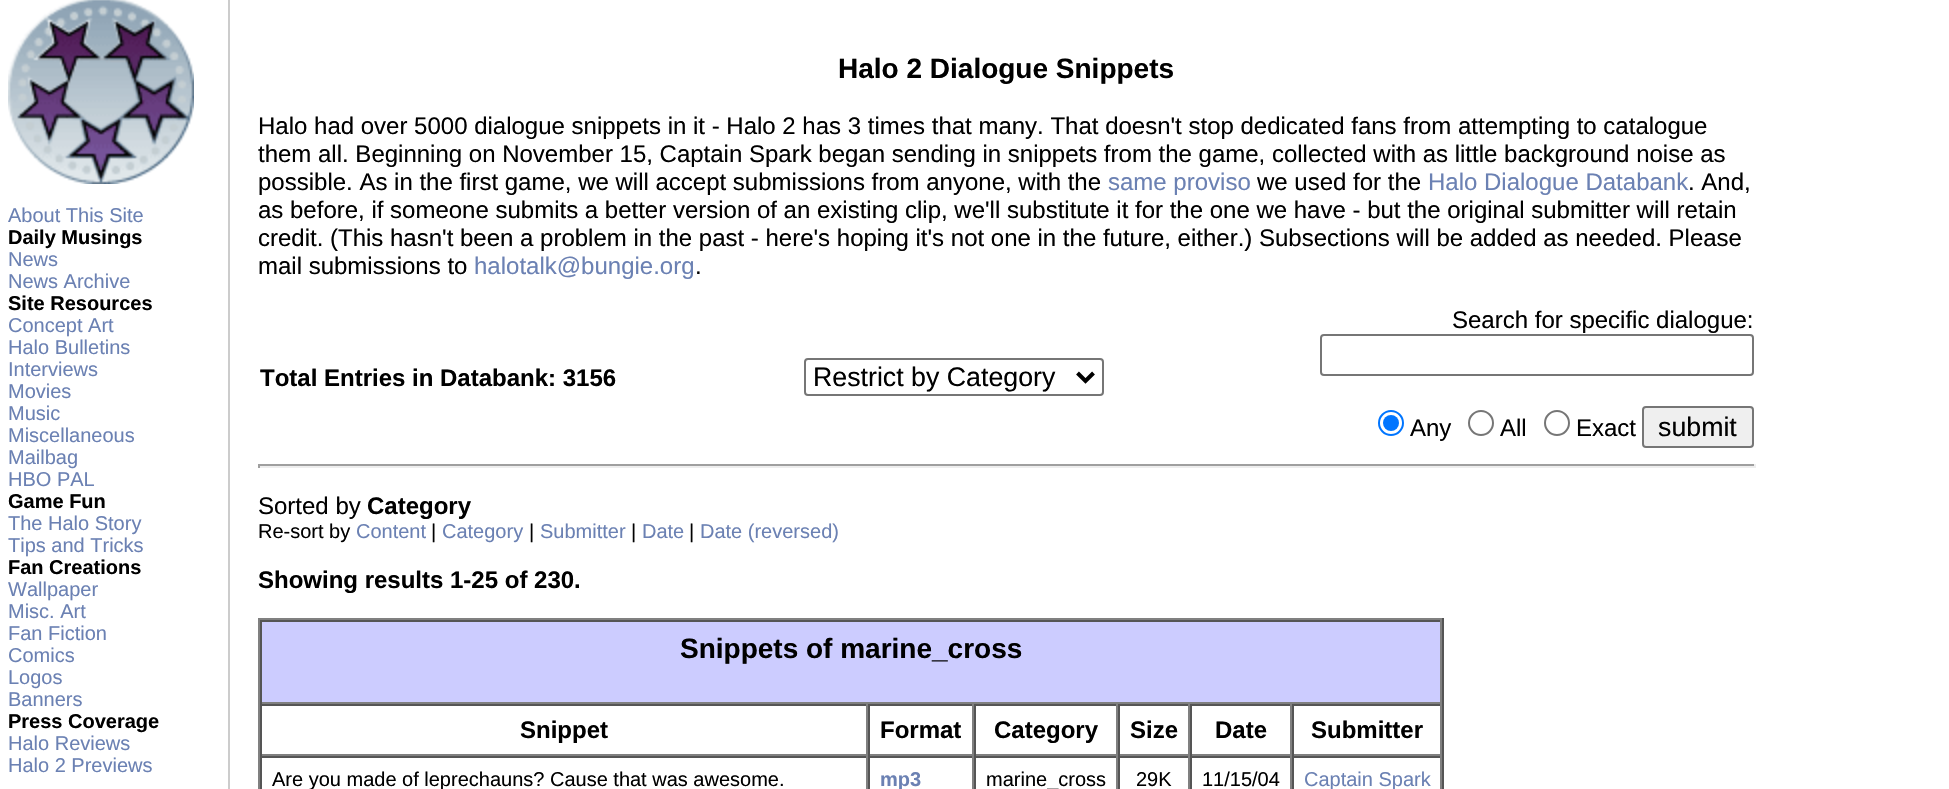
void draw(SkCanvas* canvas) {
  SkPaint paint;
  paint.setAntiAlias(true);
  auto face = [&](const char* family, int weight, float size, bool italic = false) {
    SkFontStyle style(weight, SkFontStyle::kNormal_Width,
      italic ? SkFontStyle::kItalic_Slant : SkFontStyle::kUpright_Slant);
    SkFont result(fontMgr->matchFamilyStyle(family, style), size);
    result.setSubpixel(true);
    return result;
  };
  auto paste = [&](const char* path, float x, float y, float w, float h) {
    auto image = SkImages::DeferredFromEncodedData(SkData::MakeFromFileName(path));
    canvas->drawImageRect(image, SkRect::MakeXYWH(x, y, w, h), SkSamplingOptions());
  };
  auto shape = [&](const char* data, bool evenOdd = false) {
    SkPath result = *SkParsePath::FromSVGString(data);
    if (evenOdd) result.setFillType(SkPathFillType::kEvenOdd);
    return result;
  };
  canvas->clear(0xffffffff);
  paste("img/1.png", 8, 0, 186, 184);
  paint.setColor(0xffcccccc);
  canvas->drawRect(SkRect::MakeXYWH(228, 0, 2, 789), paint);
  paint.setStroke(true);
  paint.setStrokeWidth(2);
  paint.setColor(0xff767676);
  canvas->drawRoundRect(SkRect::MakeXYWH(805, 359, 298, 36), 3, 3, paint);
  paint.setStrokeWidth(4);
  paint.setColor(0xff000000);
  canvas->drawPath(shape("M1077.5 373L1085.5 381L1093.5 373"), paint);
  paint.setStrokeWidth(2);
  paint.setColor(0xff767676);
  canvas->drawRoundRect(SkRect::MakeXYWH(1321, 335, 432, 40), 3, 3, paint);
  paint.setColor(0xff0075ff);
  canvas->drawCircle(1391, 423, 12, paint);
  paint.setStroke(false);
  canvas->drawCircle(1391, 423, 8, paint);
  paint.setStroke(true);
  paint.setColor(0xff767676);
  canvas->drawCircle(1481, 423, 12, paint);
  canvas->drawCircle(1557, 423, 12, paint);
  paint.setStroke(false);
  paint.setColor(0xffefefef);
  canvas->drawRoundRect(SkRect::MakeXYWH(1643, 407, 110, 40), 3, 3, paint);
  paint.setStroke(true);
  paint.setColor(0xff767676);
  canvas->drawRoundRect(SkRect::MakeXYWH(1643, 407, 110, 40), 3, 3, paint);
  paint.setStroke(false);
  {
    const struct { float x, y, w, h; SkColor color; } items[] = {
      {258, 464, 1498, 2, 0xff9f9f9f},
      {1754, 464, 2, 4, 0xffeeeeee},
      {258, 466, 1498, 2, 0xffeeeeee},
      {258, 464, 2, 4, 0xff9f9f9f},
      {258, 618, 1186, 2, 0xff808080},
      {1442, 618, 2, 171, 0xff555555},
      {258, 618, 2, 171, 0xff808080},
      {262, 622, 1178, 80, 0xffccccff},
      {260, 620, 1182, 2, 0xff555555},
      {1440, 620, 2, 84, 0xff808080},
      {260, 702, 1182, 2, 0xff808080},
      {260, 620, 2, 84, 0xff555555},
      {260, 704, 1182, 2, 0xff555555},
      {866, 704, 2, 52, 0xff808080},
      {260, 754, 608, 2, 0xff808080},
      {260, 704, 2, 52, 0xff555555},
      {972, 704, 2, 52, 0xff808080},
      {868, 754, 106, 2, 0xff808080},
      {868, 704, 2, 52, 0xff555555},
      {1116, 704, 2, 52, 0xff808080},
      {974, 754, 144, 2, 0xff808080},
      {974, 704, 2, 52, 0xff555555},
      {1188, 704, 2, 52, 0xff808080},
      {1118, 754, 72, 2, 0xff808080},
      {1118, 704, 2, 52, 0xff555555},
      {1290, 704, 2, 52, 0xff808080},
      {1190, 754, 102, 2, 0xff808080},
      {1190, 704, 2, 52, 0xff555555},
      {1440, 704, 2, 52, 0xff808080},
      {1292, 754, 150, 2, 0xff808080},
      {1292, 704, 2, 52, 0xff555555},
      {260, 756, 1182, 2, 0xff555555},
      {866, 756, 2, 33, 0xff808080},
      {260, 756, 2, 33, 0xff555555},
      {972, 756, 2, 33, 0xff808080},
      {868, 756, 2, 33, 0xff555555},
      {1116, 756, 2, 33, 0xff808080},
      {974, 756, 2, 33, 0xff555555},
      {1188, 756, 2, 33, 0xff808080},
      {1118, 756, 2, 33, 0xff555555},
      {1290, 756, 2, 33, 0xff808080},
      {1190, 756, 2, 33, 0xff555555},
      {1440, 756, 2, 33, 0xff808080},
      {1292, 756, 2, 33, 0xff555555},
    };
    for (auto [x, y, w, h, color] : items) {
      paint.setColor(color);
      canvas->drawRect(SkRect::MakeXYWH(x, y, w, h), paint);
    }
  }
  auto f0 = face("Liberation Sans", 400, 20);
  paint.setColor(0xff6b81b3);
  canvas->drawString("About This Site", 8, 222, f0, paint);
  auto f1 = face("Liberation Sans", 700, 20);
  paint.setColor(0xff000000);
  canvas->drawString("Daily Musings", 8, 244, f1, paint);
  paint.setColor(0xff6b81b3);
  canvas->drawString("News", 8, 266, f0, paint);
  canvas->drawString("News Archive", 8, 288, f0, paint);
  paint.setColor(0xff000000);
  canvas->drawString("Site Resources", 8, 310, f1, paint);
  paint.setColor(0xff6b81b3);
  {
    const struct { const char* s; float x, y; } items[] = {
      {"Concept Art", 8, 332},
      {"Halo Bulletins", 8, 354},
      {"Interviews", 8, 376},
      {"Movies", 8, 398},
      {"Music", 8, 420},
      {"Miscellaneous", 8, 442},
      {"Mailbag", 8, 464},
      {"HBO PAL", 8, 486},
    };
    for (auto [s, x, y] : items) {
      canvas->drawString(s, x, y, f0, paint);
    }
  }
  paint.setColor(0xff000000);
  canvas->drawString("Game Fun", 8, 508, f1, paint);
  paint.setColor(0xff6b81b3);
  canvas->drawString("The Halo Story", 8, 530, f0, paint);
  canvas->drawString("Tips and Tricks", 8, 552, f0, paint);
  paint.setColor(0xff000000);
  canvas->drawString("Fan Creations", 8, 574, f1, paint);
  paint.setColor(0xff6b81b3);
  {
    const struct { const char* s; float x, y; } items[] = {
      {"Wallpaper", 8, 596},
      {"Misc. Art", 8, 618},
      {"Fan Fiction", 8, 640},
      {"Comics", 8, 662},
      {"Logos", 8, 684},
      {"Banners", 8, 706},
    };
    for (auto [s, x, y] : items) {
      canvas->drawString(s, x, y, f0, paint);
    }
  }
  paint.setColor(0xff000000);
  canvas->drawString("Press Coverage", 8, 728, f1, paint);
  paint.setColor(0xff6b81b3);
  canvas->drawString("Halo Reviews", 8, 750, f0, paint);
  canvas->drawString("Halo 2 Previews", 8, 772, f0, paint);
  auto f2 = face("Liberation Sans", 700, 28);
  paint.setColor(0xff000000);
  canvas->drawString("Halo 2 Dialogue Snippets", 838, 78, f2, paint);
  auto f3 = face("Liberation Sans", 400, 24);
  {
    const struct { const char* s; float x, y; } items[] = {
      {"Halo had over 5000 dialogue snippets in it - Halo 2 has 3 times that many. That doesn't stop dedicated fans from attempting to catalogue", 258, 134},
      {"them all. Beginning on November 15, Captain Spark began sending in snippets from the game, collected with as little background noise as", 258, 162},
      {"possible. As in the first game, we will accept submissions from anyone, with the", 258, 190},
    };
    for (auto [s, x, y] : items) {
      canvas->drawString(s, x, y, f3, paint);
    }
  }
  paint.setColor(0xff6b81b3);
  canvas->drawString("same proviso", 1108, 190, f3, paint);
  paint.setColor(0xff000000);
  canvas->drawString("we used for the", 1257, 190, f3, paint);
  paint.setColor(0xff6b81b3);
  canvas->drawString("Halo Dialogue Databank", 1428, 190, f3, paint);
  paint.setColor(0xff000000);
  {
    const struct { const char* s; float x, y; } items[] = {
      {". And,", 1688, 190},
      {"as before, if someone submits a better version of an existing clip, we'll substitute it for the one we have - but the original submitter will retain", 258, 218},
      {"credit. (This hasn't been a problem in the past - here's hoping it's not one in the future, either.) Subsections will be added as needed. Please", 258, 246},
      {"mail submissions to", 258, 274},
    };
    for (auto [s, x, y] : items) {
      canvas->drawString(s, x, y, f3, paint);
    }
  }
  paint.setColor(0xff6b81b3);
  canvas->drawString("halotalk@bungie.org", 474, 274, f3, paint);
  paint.setColor(0xff000000);
  canvas->drawString(".", 695, 274, f3, paint);
  auto f4 = face("Liberation Sans", 700, 24);
  canvas->drawString("Total Entries in Databank: 3156", 260, 386, f4, paint);
  auto f5 = face("Liberation Sans", 400, 26.75f);
  canvas->drawString("Restrict by Category", 813, 386, f5, paint);
  {
    const struct { const char* s; float x, y; } items[] = {
      {"Search for specific dialogue:", 1452, 328},
      {"Any", 1410, 436},
      {"All", 1500, 436},
      {"Exact", 1576, 436},
    };
    for (auto [s, x, y] : items) {
      canvas->drawString(s, x, y, f3, paint);
    }
  }
  canvas->drawString("submit", 1658, 436, f5, paint);
  canvas->drawString("Sorted by", 258, 514, f3, paint);
  canvas->drawString("Category", 367, 514, f4, paint);
  canvas->drawString("Re-sort by", 258, 538, f0, paint);
  paint.setColor(0xff6b81b3);
  canvas->drawString("Content", 356, 538, f0, paint);
  paint.setColor(0xff000000);
  canvas->drawString("|", 431, 538, f0, paint);
  paint.setColor(0xff6b81b3);
  canvas->drawString("Category", 442, 538, f0, paint);
  paint.setColor(0xff000000);
  canvas->drawString("|", 529, 538, f0, paint);
  paint.setColor(0xff6b81b3);
  canvas->drawString("Submitter", 540, 538, f0, paint);
  paint.setColor(0xff000000);
  canvas->drawString("|", 631, 538, f0, paint);
  paint.setColor(0xff6b81b3);
  canvas->drawString("Date", 642, 538, f0, paint);
  paint.setColor(0xff000000);
  canvas->drawString("|", 689, 538, f0, paint);
  paint.setColor(0xff6b81b3);
  canvas->drawString("Date (reversed)", 700, 538, f0, paint);
  paint.setColor(0xff000000);
  canvas->drawString("Showing results 1-25 of 230.", 258, 588, f4, paint);
  canvas->drawString("Snippets of marine_cross", 680, 658, f2, paint);
  {
    const struct { const char* s; float x, y; } items[] = {
      {"Snippet", 520, 738},
      {"Format", 880, 738},
      {"Category", 994, 738},
      {"Size", 1130, 738},
      {"Date", 1215, 738},
      {"Submitter", 1311, 738},
    };
    for (auto [s, x, y] : items) {
      canvas->drawString(s, x, y, f4, paint);
    }
  }
  canvas->drawString("Are you made of leprechauns? Cause that was awesome.", 272, 786, f0, paint);
  paint.setColor(0xff6b81b3);
  canvas->drawString("mp3", 880, 786, f1, paint);
  paint.setColor(0xff000000);
  {
    const struct { const char* s; float x, y; } items[] = {
      {"marine_cross", 986, 786},
      {"29K", 1136, 786},
      {"11/15/04", 1202, 786},
    };
    for (auto [s, x, y] : items) {
      canvas->drawString(s, x, y, f0, paint);
    }
  }
  paint.setColor(0xff6b81b3);
  canvas->drawString("Captain Spark", 1304, 786, f0, paint);
}
